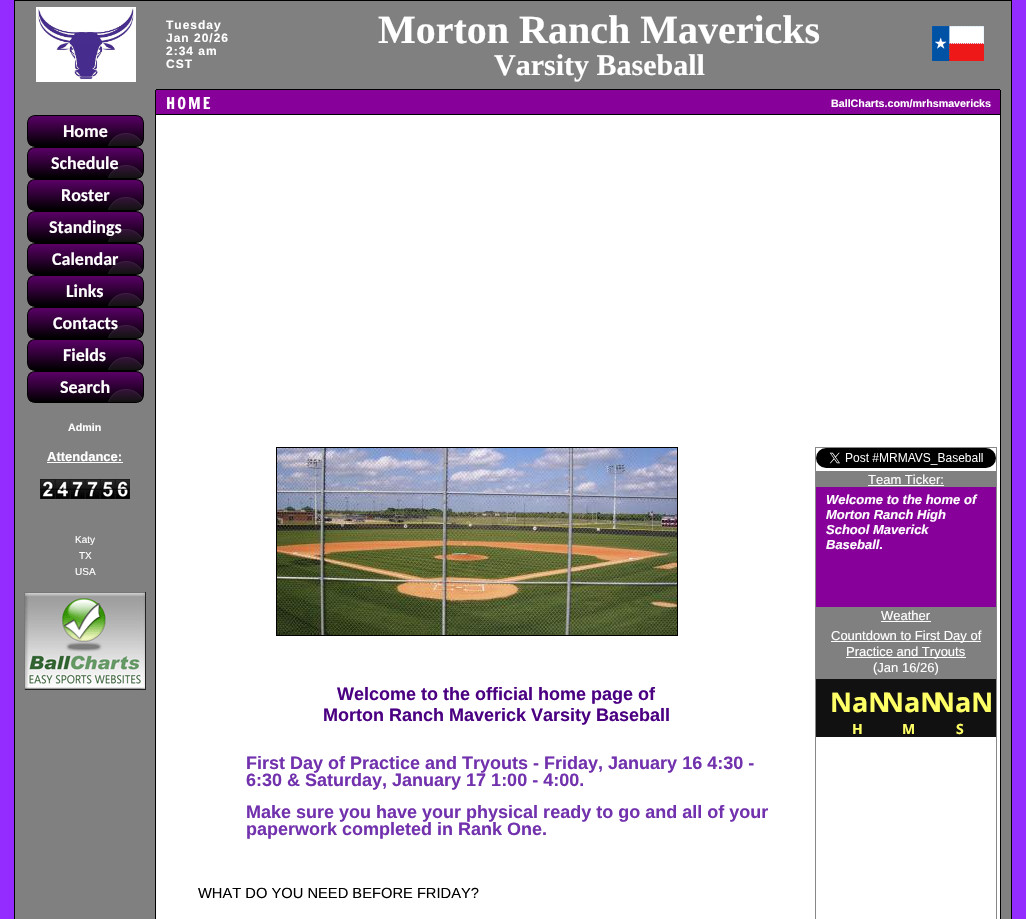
void draw(SkCanvas* canvas) {
  SkPaint paint;
  paint.setAntiAlias(true);
  auto face = [&](const char* family, int weight, float size, bool italic = false) {
    SkFontStyle style(weight, SkFontStyle::kNormal_Width,
      italic ? SkFontStyle::kItalic_Slant : SkFontStyle::kUpright_Slant);
    SkFont result(fontMgr->matchFamilyStyle(family, style), size);
    result.setSubpixel(true);
    return result;
  };
  auto writeSpaced = [&](const char* s, float x, float y, const SkFont& font, const SkPaint& ink, float letter, float word) {
    std::vector<SkGlyphID> glyphs(font.countText(s, strlen(s), SkTextEncoding::kUTF8));
    std::vector<float> xs(glyphs.size());
    font.textToGlyphs(s, strlen(s), SkTextEncoding::kUTF8, glyphs);
    font.getXPos(glyphs, xs, x);
    float extra = 0;
    for (size_t i = 0; i < glyphs.size(); i++) {
      xs[i] += extra;
      extra += letter + word * (glyphs[i] == font.unicharToGlyph(' '));
    }
    canvas->drawTextBlob(SkTextBlob::MakeFromPosHGlyphs(glyphs, xs, y, font), 0, 0, ink);
  };
  auto paste = [&](const char* path, float x, float y, float w, float h) {
    auto image = SkImages::DeferredFromEncodedData(SkData::MakeFromFileName(path));
    canvas->drawImageRect(image, SkRect::MakeXYWH(x, y, w, h), SkSamplingOptions());
  };
  canvas->clear(0xff942bff);
  {
    const struct { float x, y, w, h; SkColor color; } items[] = {
      {15, 1, 141, 89, 0xff808080},
      {14, 0, 998, 1, 0xff000000},
      {14, 0, 1, 919, 0xff000000},
    };
    for (auto [x, y, w, h, color] : items) {
      paint.setColor(color);
      canvas->drawRect(SkRect::MakeXYWH(x, y, w, h), paint);
    }
  }
  paste("img/1.png", 36, 7, 100, 75);
  paint.setColor(0xff808080);
  canvas->drawRect(SkRect::MakeXYWH(156, 1, 844, 88), paint);
  paint.setColor(0xff000000);
  canvas->drawRect(SkRect::MakeXYWH(156, 89, 844, 1), paint);
  paste("img/2.png", 932, 26, 52, 35);
  {
    const struct { float x, y, w, h; SkColor color; } items[] = {
      {1000, 1, 11, 89, 0xff808080},
      {1011, 0, 1, 919, 0xff000000},
      {15, 90, 140, 829, 0xff808080},
      {155, 90, 1, 829, 0xff000000},
      {156, 90, 844, 24, 0xff870099},
      {156, 114, 844, 1, 0xff000000},
      {1001, 90, 10, 829, 0xff808080},
      {1000, 90, 1, 829, 0xff000000},
    };
    for (auto [x, y, w, h, color] : items) {
      paint.setColor(color);
      canvas->drawRect(SkRect::MakeXYWH(x, y, w, h), paint);
    }
  }
  paste("img/3.png", 28, 116, 115, 30);
  paint.setStroke(true);
  paint.setStrokeWidth(1);
  canvas->drawRoundRect(SkRect::MakeXYWH(27.5f, 115.5f, 116, 31), 7.5f, 7.5f, paint);
  paste("img/3.png", 28, 148, 115, 30);
  canvas->drawRoundRect(SkRect::MakeXYWH(27.5f, 147.5f, 116, 31), 7.5f, 7.5f, paint);
  paste("img/3.png", 28, 180, 115, 30);
  canvas->drawRoundRect(SkRect::MakeXYWH(27.5f, 179.5f, 116, 31), 7.5f, 7.5f, paint);
  paste("img/3.png", 28, 212, 115, 30);
  canvas->drawRoundRect(SkRect::MakeXYWH(27.5f, 211.5f, 116, 31), 7.5f, 7.5f, paint);
  paste("img/4.png", 28, 244, 115, 30);
  canvas->drawRoundRect(SkRect::MakeXYWH(27.5f, 243.5f, 116, 31), 7.5f, 7.5f, paint);
  paste("img/3.png", 28, 276, 115, 30);
  canvas->drawRoundRect(SkRect::MakeXYWH(27.5f, 275.5f, 116, 31), 7.5f, 7.5f, paint);
  paste("img/3.png", 28, 308, 115, 30);
  canvas->drawRoundRect(SkRect::MakeXYWH(27.5f, 307.5f, 116, 31), 7.5f, 7.5f, paint);
  paste("img/3.png", 28, 340, 115, 30);
  canvas->drawRoundRect(SkRect::MakeXYWH(27.5f, 339.5f, 116, 31), 7.5f, 7.5f, paint);
  paste("img/3.png", 28, 372, 115, 30);
  canvas->drawRoundRect(SkRect::MakeXYWH(27.5f, 371.5f, 116, 31), 7.5f, 7.5f, paint);
  paint.setStroke(false);
  paint.setColor(0xffffffff);
  canvas->drawRect(SkRect::MakeXYWH(47, 462, 76, 1), paint);
  paste("img/5.png", 40, 479, 15, 20);
  paste("img/6.png", 55, 479, 15, 20);
  paste("img/7.png", 70, 479, 15, 20);
  paste("img/7.png", 85, 479, 15, 20);
  paste("img/8.png", 100, 479, 15, 20);
  paste("img/9.png", 115, 479, 15, 20);
  {
    const struct { float x, y, w, h; SkColor color; } items[] = {
      {24, 592, 122, 1, 0xff777777},
      {145, 592, 1, 98, 0xff222222},
      {24, 689, 122, 1, 0xff222222},
      {24, 592, 1, 98, 0xff777777},
    };
    for (auto [x, y, w, h, color] : items) {
      paint.setColor(color);
      canvas->drawRect(SkRect::MakeXYWH(x, y, w, h), paint);
    }
  }
  paste("img/10.png", 25, 593, 120, 96);
  paint.setColor(0xffffffff);
  canvas->drawRect(SkRect::MakeXYWH(156, 115, 844, 804), paint);
  paint.setStroke(true);
  paint.setColor(0xff000000);
  canvas->drawRect(SkRect::MakeXYWH(276.5f, 447.5f, 401, 188), paint);
  paste("img/11.png", 277, 448, 400, 187);
  paint.setColor(0xff888888);
  canvas->drawRect(SkRect::MakeXYWH(815.5f, 447.5f, 181, 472), paint);
  paste("img/12.png", 816, 448, 180, 20);
  paint.setStroke(false);
  {
    const struct { float x, y, w, h; SkColor color; } items[] = {
      {816, 471, 180, 16, 0xff808080},
      {868, 485, 76, 1, 0xffffffff},
      {816, 487, 180, 120, 0xff870099},
      {816, 607, 180, 72, 0xff808080},
      {881, 621, 50, 1, 0xffffffff},
      {831, 641, 150, 1, 0xffffffff},
      {846, 657, 120, 1, 0xffffffff},
      {816, 679, 180, 58, 0xff111111},
    };
    for (auto [x, y, w, h, color] : items) {
      paint.setColor(color);
      canvas->drawRect(SkRect::MakeXYWH(x, y, w, h), paint);
    }
  }
  auto f0 = face("Liberation Sans", 700, 12);
  paint.setColor(0xffffffff);
  {
    const struct { const char* s; float x, y; } items[] = {
      {"Tuesday", 166, 29},
      {"Jan 20/26", 166, 42},
      {"2:34 am", 166, 55},
      {"CST", 166, 68},
    };
    for (auto [s, x, y] : items) {
      writeSpaced(s, x, y, f0, paint, 1, 0);
    }
  }
  auto f1 = face("Liberation Serif", 700, 40);
  canvas->drawString("Morton Ranch Mavericks", 378, 43, f1, paint);
  auto f2 = face("Liberation Serif", 700, 30);
  canvas->drawString("Varsity Baseball", 494, 75, f2, paint);
  auto f3 = face("Francois One", 400, 16);
  writeSpaced("HOME", 166, 109, f3, paint, 2, 0);
  auto f4 = face("Liberation Sans", 700, 10.7f);
  canvas->drawString("BallCharts.com/mrhsmavericks", 831, 107, f4, paint);
  auto f5 = face("Carlito", 700, 18);
  {
    const struct { const char* s; float x, y; } items[] = {
      {"Home", 63, 137},
      {"Schedule", 51, 169},
      {"Roster", 61, 201},
      {"Standings", 49, 233},
      {"Calendar", 52, 265},
      {"Links", 66, 297},
      {"Contacts", 53, 329},
      {"Fields", 63, 361},
      {"Search", 60, 393},
    };
    for (auto [s, x, y] : items) {
      canvas->drawString(s, x, y, f5, paint);
    }
  }
  canvas->drawString("Admin", 68, 431, f4, paint);
  auto f6 = face("Liberation Sans", 700, 13);
  canvas->drawString("Attendance:", 47, 461, f6, paint);
  auto f7 = face("Liberation Sans", 400, 10);
  {
    const struct { const char* s; float x, y; } items[] = {
      {"Katy", 75, 543},
      {"TX", 79, 559},
      {"USA", 75, 575},
    };
    for (auto [s, x, y] : items) {
      canvas->drawString(s, x, y, f7, paint);
    }
  }
  auto f8 = face("Liberation Sans", 400, 13);
  canvas->drawString("Team Ticker:", 868, 484, f8, paint);
  auto f9 = face("Liberation Sans", 700, 13, true);
  {
    const struct { const char* s; float x, y; } items[] = {
      {"Welcome to the home of", 826, 504},
      {"Morton Ranch High", 826, 519},
      {"School Maverick", 826, 534},
      {"Baseball.", 826, 549},
    };
    for (auto [s, x, y] : items) {
      canvas->drawString(s, x, y, f9, paint);
    }
  }
  {
    const struct { const char* s; float x, y; } items[] = {
      {"Weather", 881, 620},
      {"Countdown to First Day of", 831, 640},
      {"Practice and Tryouts", 846, 656},
      {"(Jan 16/26)", 873, 672},
    };
    for (auto [s, x, y] : items) {
      canvas->drawString(s, x, y, f8, paint);
    }
  }
  auto f10 = face("Open Sans", 700, 27);
  paint.setColor(0xffffff66);
  canvas->drawString("NaN", 830, 712, f10, paint);
  auto f11 = face("Open Sans", 700, 14);
  canvas->drawString("H", 852, 734, f11, paint);
  canvas->drawString("NaN", 882, 712, f10, paint);
  canvas->drawString("M", 902, 734, f11, paint);
  canvas->drawString("NaN", 933, 712, f10, paint);
  canvas->drawString("S", 956, 734, f11, paint);
  auto f12 = face("Liberation Sans", 700, 18);
  paint.setColor(0xff4b0082);
  canvas->drawString("Welcome to the official home page of", 337, 700, f12, paint);
  canvas->drawString("Morton Ranch Maverick Varsity Baseball", 323, 721, f12, paint);
  paint.setColor(0xff7232ad);
  {
    const struct { const char* s; float x, y; } items[] = {
      {"First Day of Practice and Tryouts - Friday, January 16 4:30 -", 246, 769},
      {"6:30 & Saturday, January 17 1:00 - 4:00.", 246, 786},
      {"Make sure you have your physical ready to go and all of your", 246, 818},
      {"paperwork completed in Rank One.", 246, 835},
    };
    for (auto [s, x, y] : items) {
      canvas->drawString(s, x, y, f12, paint);
    }
  }
  auto f13 = face("Liberation Sans", 400, 14.7f);
  paint.setColor(0xff000000);
  canvas->drawString("WHAT DO YOU NEED BEFORE FRIDAY?", 198, 898, f13, paint);
}
